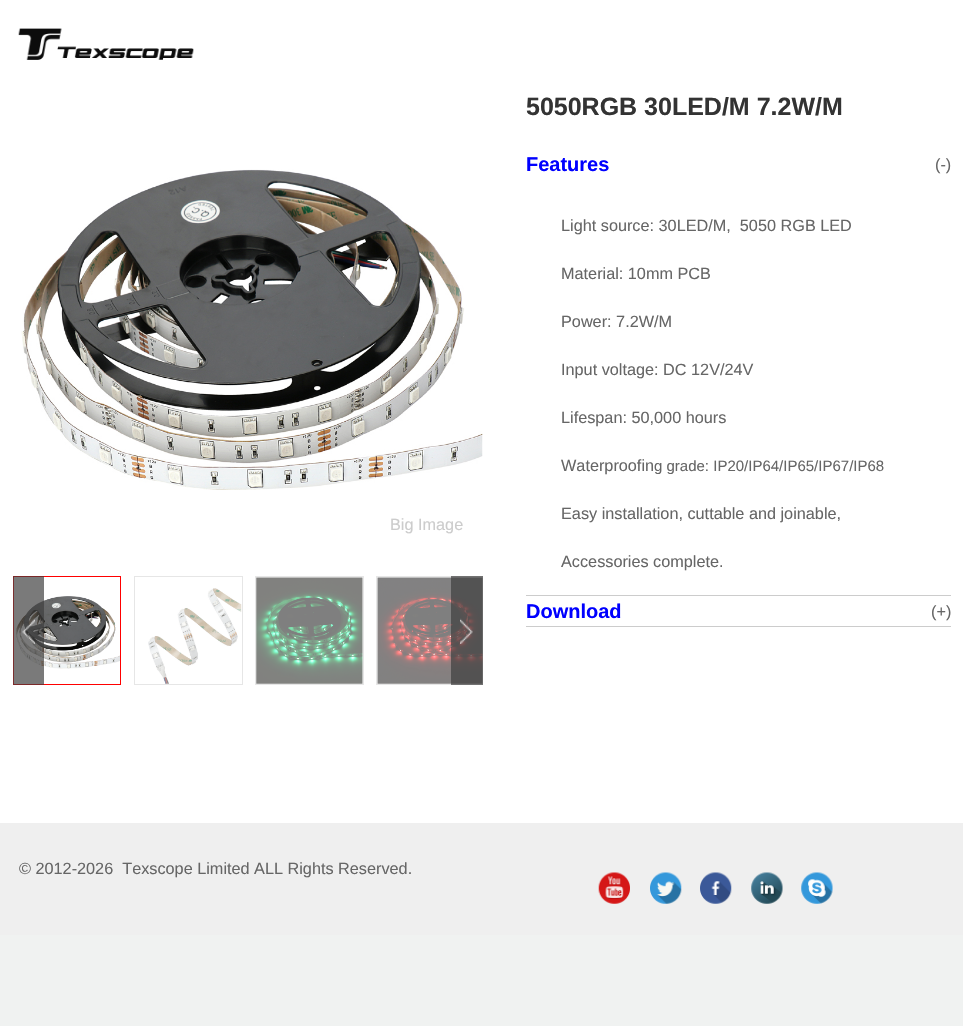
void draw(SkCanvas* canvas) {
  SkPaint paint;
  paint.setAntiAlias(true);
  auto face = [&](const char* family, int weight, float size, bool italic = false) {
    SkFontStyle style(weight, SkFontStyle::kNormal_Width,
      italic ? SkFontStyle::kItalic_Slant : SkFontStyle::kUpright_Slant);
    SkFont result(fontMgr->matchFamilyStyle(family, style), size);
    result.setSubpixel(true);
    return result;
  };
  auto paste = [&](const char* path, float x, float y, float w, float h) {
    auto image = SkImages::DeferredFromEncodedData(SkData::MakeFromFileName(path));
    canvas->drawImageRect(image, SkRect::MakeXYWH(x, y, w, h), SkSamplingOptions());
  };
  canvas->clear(0xfff0f2f1);
  paint.setColor(0xffffffff);
  canvas->drawRect(SkRect::MakeXYWH(0, 0, 963, 823), paint);
  paste("img/1.png", 18, 28, 176, 32);
  paste("img/2.png", 21, 169, 462, 321);
  paint.setStroke(true);
  paint.setStrokeWidth(1);
  paint.setColor(0xffff0000);
  canvas->drawRect(SkRect::MakeXYWH(13.5f, 576.5f, 107, 108), paint);
  paste("img/3.png", 13, 578, 107, 106);
  paint.setColor(0xffe6e6e6);
  canvas->drawRect(SkRect::MakeXYWH(134.5f, 576.5f, 108, 108), paint);
  paste("img/4.png", 148, 588, 94, 96);
  canvas->drawRect(SkRect::MakeXYWH(255.5f, 576.5f, 108, 108), paint);
  paste("img/5.png", 256, 577, 107, 107);
  canvas->save();
  canvas->clipRect(SkRect::MakeXYWH(13, 576, 470, 109));
  canvas->drawRect(SkRect::MakeXYWH(376.5f, 576.5f, 108, 108), paint);
  canvas->restore();
  paste("img/6.png", 377, 577, 106, 107);
  paint.setStroke(false);
  paint.setColor(0x993c3c3c);
  canvas->drawRect(SkRect::MakeXYWH(13, 576, 31, 109), paint);
  paint.setColor(0x333c3c3c);
  canvas->drawRect(SkRect::MakeXYWH(13, 576, 31, 109), paint);
  paste("img/7.png", 22, 618, 13, 26);
  paint.setColor(0x993c3c3c);
  canvas->drawRect(SkRect::MakeXYWH(451, 576, 32, 109), paint);
  paint.setColor(0x333c3c3c);
  canvas->drawRect(SkRect::MakeXYWH(451, 576, 32, 109), paint);
  paste("img/8.png", 460, 618, 13, 26);
  {
    const struct { float x, y, w, h; SkColor color; } items[] = {
      {526, 595, 425, 1, 0xffcccccc},
      {526, 626, 425, 1, 0xffcccccc},
      {0, 823, 963, 112, 0xffefefef},
    };
    for (auto [x, y, w, h, color] : items) {
      paint.setColor(color);
      canvas->drawRect(SkRect::MakeXYWH(x, y, w, h), paint);
    }
  }
  paste("img/9.png", 598, 872, 32, 32);
  paste("img/10.png", 650, 872, 32, 32);
  paste("img/11.png", 700, 872, 32, 32);
  paste("img/12.png", 751, 872, 32, 32);
  paste("img/13.png", 801, 872, 32, 32);
  auto f0 = face("Liberation Sans", 400, 16.25f);
  paint.setColor(0xffcccccc);
  canvas->drawString("Big Image", 390, 530, f0, paint);
  auto f1 = face("Liberation Sans", 700, 25);
  paint.setColor(0xff333333);
  canvas->drawString("5050RGB 30LED/M 7.2W/M", 526, 115, f1, paint);
  auto f2 = face("Liberation Sans", 700, 20);
  paint.setColor(0xff0000ff);
  canvas->drawString("Features", 526, 171, f2, paint);
  paint.setColor(0xff666666);
  {
    const struct { const char* s; float x, y; } items[] = {
      {"(-)", 935, 170},
      {"Light source: 30LED/M,  5050 RGB LED", 561, 231},
      {"Material: 10mm PCB", 561, 279},
      {"Power: 7.2W/M", 561, 327},
      {"Input voltage: DC 12V/24V", 561, 375},
      {"Lifespan: 50,000 hours", 561, 423},
      {"Waterproofin", 561, 471},
    };
    for (auto [s, x, y] : items) {
      canvas->drawString(s, x, y, f0, paint);
    }
  }
  auto f3 = face("Liberation Sans", 400, 15);
  canvas->drawString("g grade: IP20/IP64/IP65/IP67/IP68", 654, 471, f3, paint);
  canvas->drawString("Easy installation, cuttable and joinable,", 561, 519, f0, paint);
  canvas->drawString("Accessories complete.", 561, 567, f0, paint);
  paint.setColor(0xff0000ff);
  canvas->drawString("Download", 526, 618, f2, paint);
  paint.setColor(0xff666666);
  canvas->drawString("(+)", 931, 617, f0, paint);
  canvas->drawString("© 2012-2026  Texscope Limited ALL Rights Reserved.", 19, 874, f0, paint);
}
